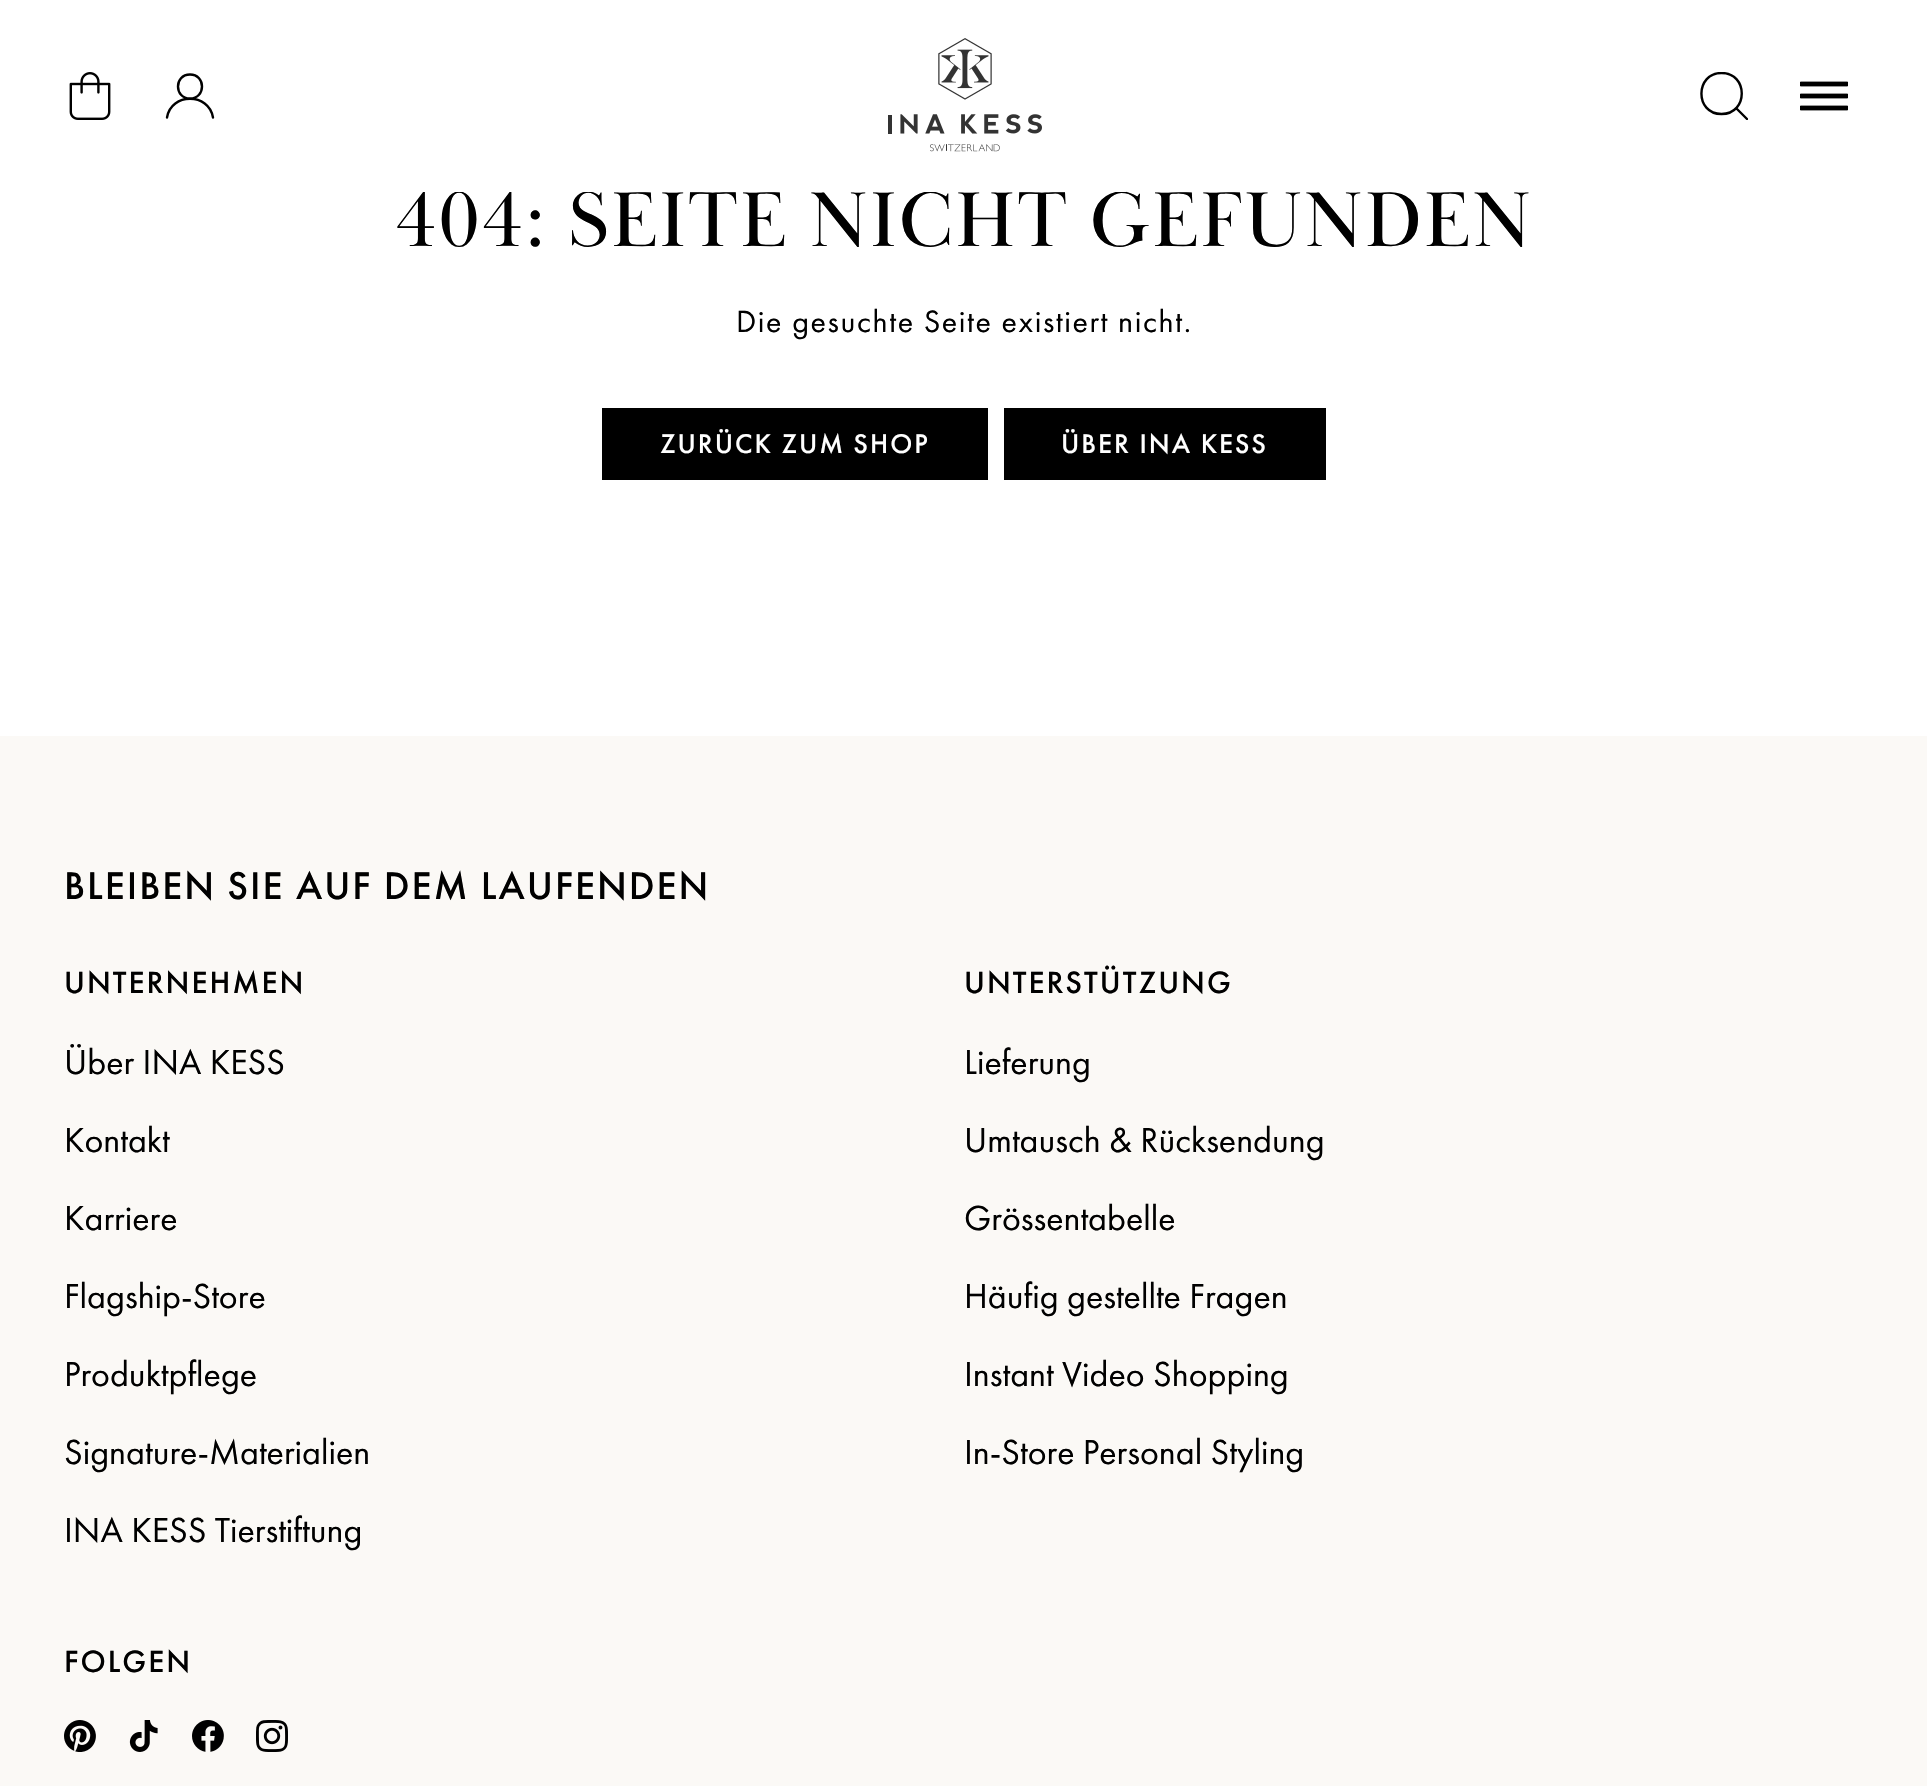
void draw(SkCanvas* canvas) {
  SkPaint paint;
  paint.setAntiAlias(true);
  auto face = [&](const char* family, int weight, float size, bool italic = false) {
    SkFontStyle style(weight, SkFontStyle::kNormal_Width,
      italic ? SkFontStyle::kItalic_Slant : SkFontStyle::kUpright_Slant);
    SkFont result(fontMgr->matchFamilyStyle(family, style), size);
    result.setSubpixel(true);
    return result;
  };
  auto writeSpaced = [&](const char* s, float x, float y, const SkFont& font, const SkPaint& ink, float letter, float word) {
    std::vector<SkGlyphID> glyphs(font.countText(s, strlen(s), SkTextEncoding::kUTF8));
    std::vector<float> xs(glyphs.size());
    font.textToGlyphs(s, strlen(s), SkTextEncoding::kUTF8, glyphs);
    font.getXPos(glyphs, xs, x);
    float extra = 0;
    for (size_t i = 0; i < glyphs.size(); i++) {
      xs[i] += extra;
      extra += letter + word * (glyphs[i] == font.unicharToGlyph(' '));
    }
    canvas->drawTextBlob(SkTextBlob::MakeFromPosHGlyphs(glyphs, xs, y, font), 0, 0, ink);
  };
  auto paste = [&](const char* path, float x, float y, float w, float h) {
    auto image = SkImages::DeferredFromEncodedData(SkData::MakeFromFileName(path));
    canvas->drawImageRect(image, SkRect::MakeXYWH(x, y, w, h), SkSamplingOptions());
  };
  auto shape = [&](const char* data, bool evenOdd = false) {
    SkPath result = *SkParsePath::FromSVGString(data);
    if (evenOdd) result.setFillType(SkPathFillType::kEvenOdd);
    return result;
  };
  canvas->clear(0xffffffff);
  paste("img/1.png", 69, 72, 42, 48);
  paint.setStroke(true);
  paint.setStrokeWidth(2.4f);
  paint.setStrokeCap(SkPaint::kRound_Cap);
  paint.setStrokeJoin(SkPaint::kRound_Join);
  paint.setColor(0xff000000);
  canvas->drawPath(shape("M167 117.5C171 92.5 209 92.5 213 117.5M190 98.5C174 98.5 174 74.5 190 74.5C206 74.5 206 98.5 190 98.5"), paint);
  paste("img/2.png", 888, 38, 154, 114);
  canvas->save();
  canvas->clipRect(SkRect::MakeXYWH(1700, 72, 48, 48));
  canvas->drawPath(shape("M1737 109L1747 119M1721.5 114C1694.5 114 1695 73 1721.5 73C1748.5 73 1748.5 114 1721.5 114"), paint);
  canvas->restore();
  paste("img/3.png", 1800, 81, 48, 30);
  paint.setStroke(false);
  {
    const struct { float x, y, w, h; SkColor color; } items[] = {
      {602, 408, 386, 72, 0xff000000},
      {1004, 408, 322, 72, 0xff000000},
      {0, 736, 1927, 1050, 0xfffbf9f6},
    };
    for (auto [x, y, w, h, color] : items) {
      paint.setColor(color);
      canvas->drawRect(SkRect::MakeXYWH(x, y, w, h), paint);
    }
  }
  paste("img/4.png", 64, 1720, 32, 32);
  paste("img/5.png", 129, 1720, 29, 32);
  paste("img/6.png", 192, 1720, 32, 32);
  paste("img/7.png", 256, 1720, 32, 32);
  auto f0 = face("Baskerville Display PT", 400, 80);
  paint.setColor(0xff000000);
  writeSpaced("404: SEITE NICHT GEFUNDEN", 395, 246, f0, paint, 2, 0);
  paint.setColor(0xffffffff);
  canvas->drawRect(SkRect::MakeXYWH(423, 191, 703, 1), paint);
  auto f1 = face("Futura PT", 400, 32);
  paint.setColor(0xff000000);
  writeSpaced("Die gesuchte Seite existiert nicht.", 736, 332, f1, paint, 1.6f, 0);
  auto f2 = face("Futura PT", 500, 28);
  paint.setColor(0xffffffff);
  writeSpaced("ZURÜCK ZUM SHOP", 660, 453, f2, paint, 2, 0);
  writeSpaced("ÜBER INA KESS", 1061, 453, f2, paint, 2, 0);
  auto f3 = face("Futura PT", 500, 40);
  paint.setColor(0xff000000);
  writeSpaced("BLEIBEN SIE AUF DEM LAUFENDEN", 64, 899, f3, paint, 2, 0);
  auto f4 = face("Futura PT", 500, 32);
  writeSpaced("UNTERNEHMEN", 64, 993, f4, paint, 2, 0);
  auto f5 = face("Futura PT", 400, 36);
  {
    const struct { const char* s; float x, y; } items[] = {
      {"Über INA KESS", 64, 1074},
      {"Kontakt", 64, 1152},
      {"Karriere", 64, 1230},
      {"Flagship-Store", 64, 1308},
      {"Produktpflege", 64, 1386},
      {"Signature-Materialien", 64, 1464},
      {"INA KESS Tierstiftung", 64, 1542},
    };
    for (auto [s, x, y] : items) {
      canvas->drawString(s, x, y, f5, paint);
    }
  }
  writeSpaced("UNTERSTÜTZUNG", 964, 993, f4, paint, 2, 0);
  {
    const struct { const char* s; float x, y; } items[] = {
      {"Lieferung", 964, 1074},
      {"Umtausch & Rücksendung", 964, 1152},
      {"Grössentabelle", 964, 1230},
      {"Häufig gestellte Fragen", 964, 1308},
      {"Instant Video Shopping", 964, 1386},
      {"In-Store Personal Styling", 964, 1464},
    };
    for (auto [s, x, y] : items) {
      canvas->drawString(s, x, y, f5, paint);
    }
  }
  writeSpaced("FOLGEN", 64, 1672, f4, paint, 2, 0);
}
